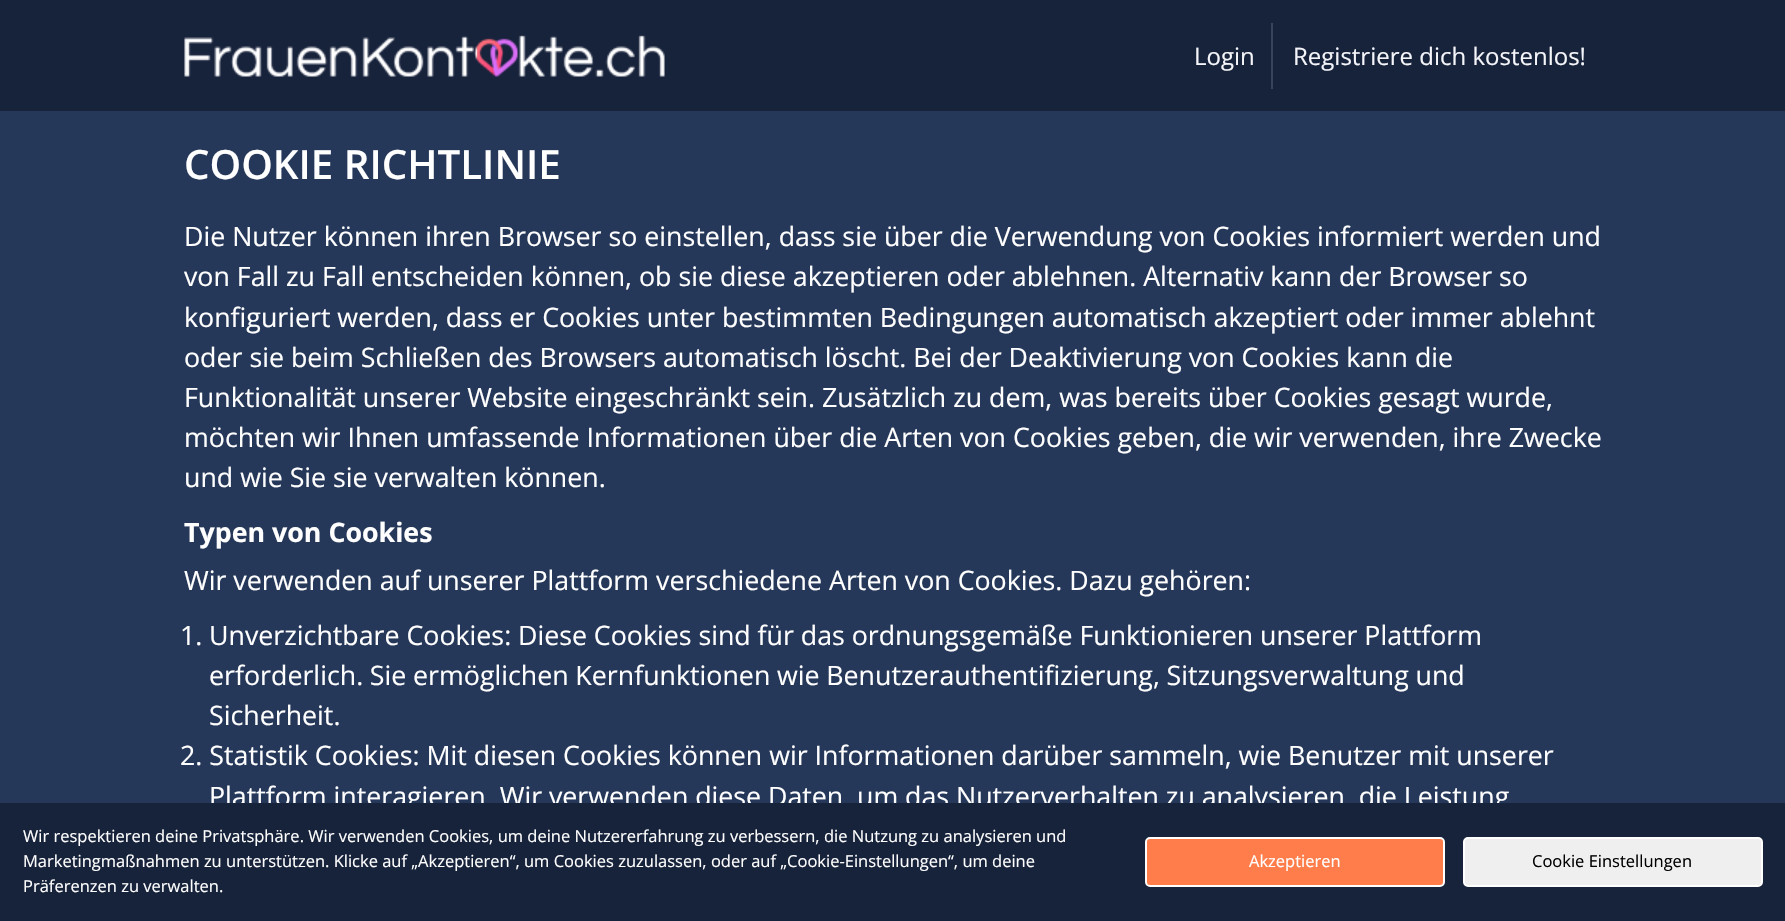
void draw(SkCanvas* canvas) {
  SkPaint paint;
  paint.setAntiAlias(true);
  auto face = [&](const char* family, int weight, float size, bool italic = false) {
    SkFontStyle style(weight, SkFontStyle::kNormal_Width,
      italic ? SkFontStyle::kItalic_Slant : SkFontStyle::kUpright_Slant);
    SkFont result(fontMgr->matchFamilyStyle(family, style), size);
    result.setSubpixel(true);
    return result;
  };
  auto writeSpaced = [&](const char* s, float x, float y, const SkFont& font, const SkPaint& ink, float letter, float word) {
    std::vector<SkGlyphID> glyphs(font.countText(s, strlen(s), SkTextEncoding::kUTF8));
    std::vector<float> xs(glyphs.size());
    font.textToGlyphs(s, strlen(s), SkTextEncoding::kUTF8, glyphs);
    font.getXPos(glyphs, xs, x);
    float extra = 0;
    for (size_t i = 0; i < glyphs.size(); i++) {
      xs[i] += extra;
      extra += letter + word * (glyphs[i] == font.unicharToGlyph(' '));
    }
    canvas->drawTextBlob(SkTextBlob::MakeFromPosHGlyphs(glyphs, xs, y, font), 0, 0, ink);
  };
  auto paste = [&](const char* path, float x, float y, float w, float h) {
    auto image = SkImages::DeferredFromEncodedData(SkData::MakeFromFileName(path));
    canvas->drawImageRect(image, SkRect::MakeXYWH(x, y, w, h), SkSamplingOptions());
  };
  canvas->clear(0xff263859);
  paint.setColor(0xff17223b);
  canvas->drawRect(SkRect::MakeXYWH(0, 0, 1785, 111), paint);
  paste("img/1.png", 184, 35, 481, 42);
  paint.setColor(0xff39445c);
  canvas->drawRect(SkRect::MakeXYWH(1271, 23, 2, 66), paint);
  auto f0 = face("Open Sans", 400, 24);
  paint.setColor(0xfff4f5f9);
  canvas->drawString("Login", 1194, 65, f0, paint);
  canvas->drawString("Registriere dich kostenlos!", 1293, 65, f0, paint);
  auto f1 = face("Open Sans", 600, 40.25f);
  paint.setColor(0xffffffff);
  canvas->drawString("COOKIE RICHTLINIE", 184, 179, f1, paint);
  auto f2 = face("Open Sans", 400, 26.77f);
  canvas->drawString("Die Nutzer können ihren Browser so einstellen, dass sie über die Verwendung von Cookies informiert werden und", 184, 246, f2, paint);
  canvas->drawString("von Fall zu Fall entscheiden können, ob sie diese akzeptieren oder ablehnen. Alternativ kann der Browser so", 184, 286, f2, paint);
  writeSpaced("konfiguriert werden, dass er Cookies unter bestimmten Bedingungen automatisch akzeptiert oder immer ablehnt", 184, 327, f2, paint, 0, -0.1f);
  {
    const struct { const char* s; float x, y; } items[] = {
      {"oder sie beim Schließen des Browsers automatisch löscht. Bei der Deaktivierung von Cookies kann die", 184, 367},
      {"Funktionalität unserer Website eingeschränkt sein. Zusätzlich zu dem, was bereits über Cookies gesagt wurde,", 184, 407},
      {"möchten wir Ihnen umfassende Informationen über die Arten von Cookies geben, die wir verwenden, ihre Zwecke", 184, 447},
      {"und wie Sie sie verwalten können.", 184, 487},
    };
    for (auto [s, x, y] : items) {
      canvas->drawString(s, x, y, f2, paint);
    }
  }
  auto f3 = face("Open Sans", 700, 26.77f);
  canvas->drawString("Typen von Cookies", 184, 542, f3, paint);
  canvas->drawString("Wir verwenden auf unserer Plattform verschiedene Arten von Cookies. Dazu gehören:", 184, 590, f2, paint);
  canvas->drawString("1.", 180, 645, f2, paint);
  writeSpaced("Unverzichtbare Cookies: Diese Cookies sind für das ordnungsgemäße Funktionieren unserer Plattform", 209, 645, f2, paint, 0, -0.1f);
  writeSpaced("erforderlich. Sie ermöglichen Kernfunktionen wie Benutzerauthentifizierung, Sitzungsverwaltung und", 209, 685, f2, paint, 0, -0.25f);
  canvas->drawString("Sicherheit.", 209, 725, f2, paint);
  canvas->drawString("2. Statistik Cookies: Mit diesen Cookies können wir Informationen darüber sammeln, wie Benutzer mit unserer", 180, 765, f2, paint);
  writeSpaced("Plattform interagieren. Wir verwenden diese Daten, um das Nutzerverhalten zu analysieren, die Leistung", 209, 806, f2, paint, 0, -0.1f);
  paint.setColor(0xff17223b);
  canvas->drawRect(SkRect::MakeXYWH(0, 803, 1785, 118), paint);
  auto f4 = face("Open Sans", 400, 16.5f);
  paint.setColor(0xffffffff);
  {
    const struct { const char* s; float x, y; } items[] = {
      {"Wir respektieren deine Privatsphäre. Wir verwenden Cookies, um deine Nutzererfahrung zu verbessern, die Nutzung zu analysieren und", 23, 842},
      {"Marketingmaßnahmen zu unterstützen. Klicke auf „Akzeptieren“, um Cookies zuzulassen, oder auf „Cookie-Einstellungen“, um deine", 23, 867},
      {"Präferenzen zu verwalten.", 23, 892},
    };
    for (auto [s, x, y] : items) {
      canvas->drawString(s, x, y, f4, paint);
    }
  }
  paint.setColor(0xffff7d4a);
  canvas->drawRoundRect(SkRect::MakeXYWH(1146, 838, 298, 48), 4, 4, paint);
  paint.setStroke(true);
  paint.setStrokeWidth(2);
  paint.setColor(0xffffffff);
  canvas->drawRoundRect(SkRect::MakeXYWH(1146, 838, 298, 48), 4, 4, paint);
  paint.setStroke(false);
  canvas->drawString("Akzeptieren", 1249, 867, f4, paint);
  paint.setColor(0xffefefef);
  canvas->drawRoundRect(SkRect::MakeXYWH(1464, 838, 298, 48), 4, 4, paint);
  paint.setStroke(true);
  paint.setColor(0xffffffff);
  canvas->drawRoundRect(SkRect::MakeXYWH(1464, 838, 298, 48), 4, 4, paint);
  paint.setStroke(false);
  paint.setColor(0xff000000);
  canvas->drawString("Cookie Einstellungen", 1532, 867, f4, paint);
}
